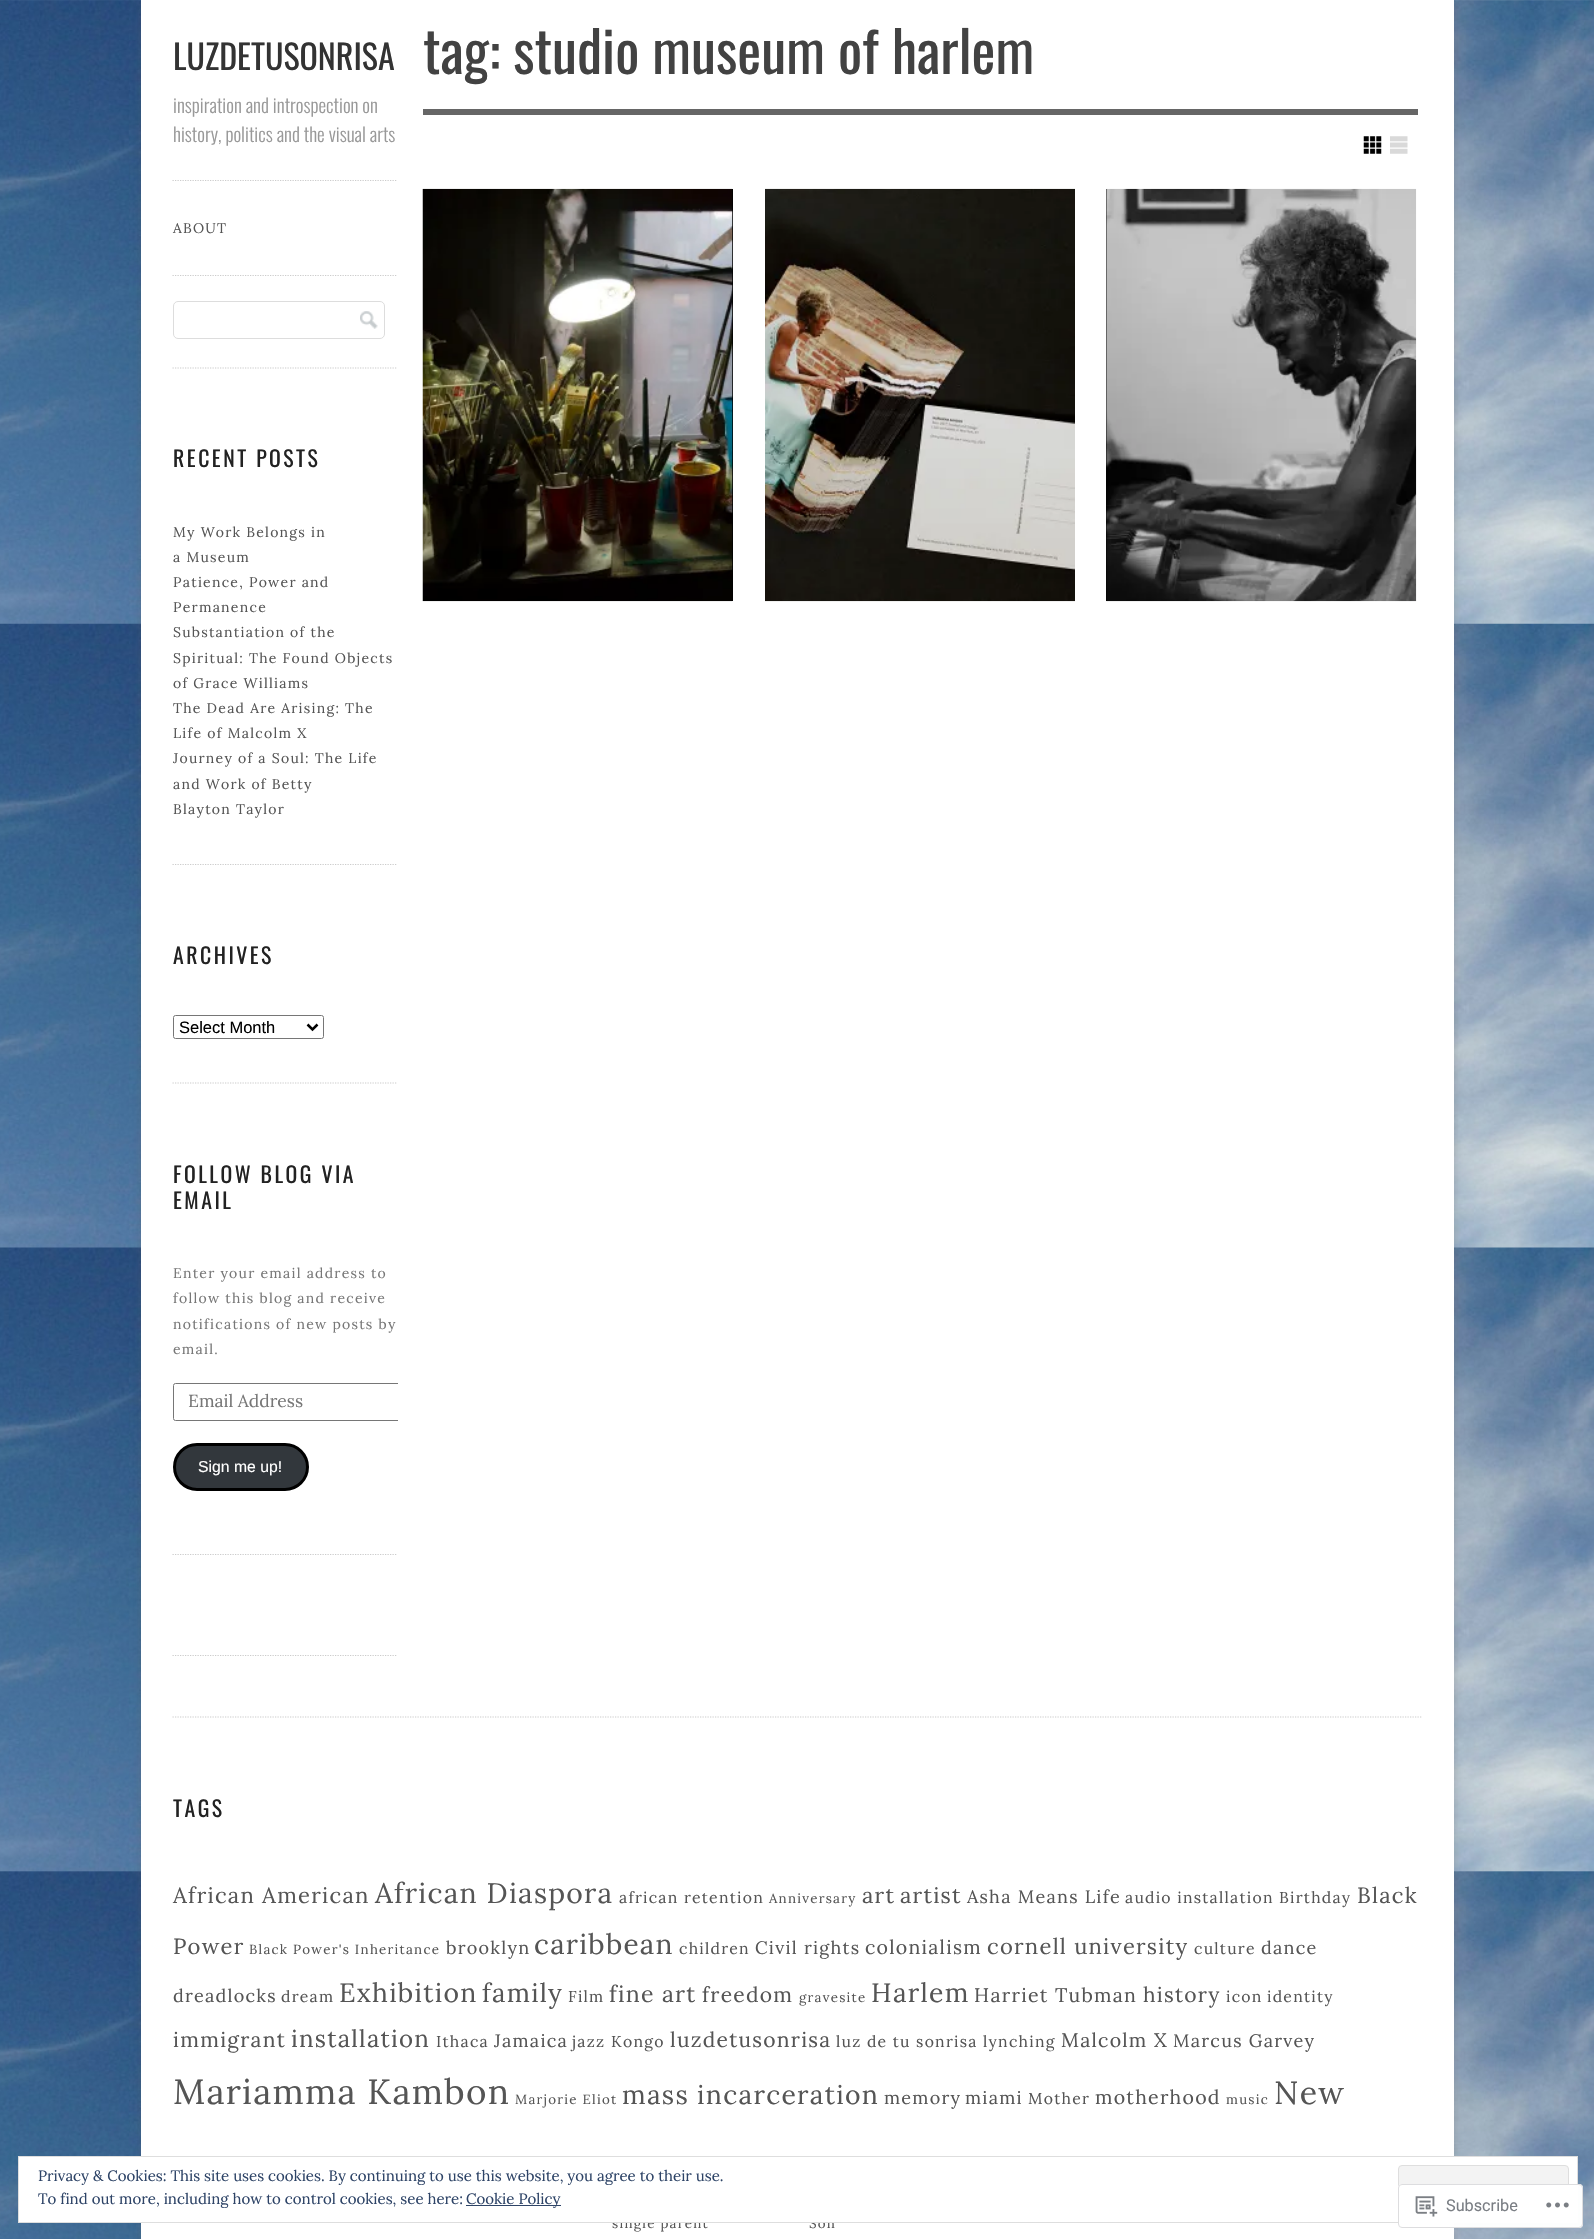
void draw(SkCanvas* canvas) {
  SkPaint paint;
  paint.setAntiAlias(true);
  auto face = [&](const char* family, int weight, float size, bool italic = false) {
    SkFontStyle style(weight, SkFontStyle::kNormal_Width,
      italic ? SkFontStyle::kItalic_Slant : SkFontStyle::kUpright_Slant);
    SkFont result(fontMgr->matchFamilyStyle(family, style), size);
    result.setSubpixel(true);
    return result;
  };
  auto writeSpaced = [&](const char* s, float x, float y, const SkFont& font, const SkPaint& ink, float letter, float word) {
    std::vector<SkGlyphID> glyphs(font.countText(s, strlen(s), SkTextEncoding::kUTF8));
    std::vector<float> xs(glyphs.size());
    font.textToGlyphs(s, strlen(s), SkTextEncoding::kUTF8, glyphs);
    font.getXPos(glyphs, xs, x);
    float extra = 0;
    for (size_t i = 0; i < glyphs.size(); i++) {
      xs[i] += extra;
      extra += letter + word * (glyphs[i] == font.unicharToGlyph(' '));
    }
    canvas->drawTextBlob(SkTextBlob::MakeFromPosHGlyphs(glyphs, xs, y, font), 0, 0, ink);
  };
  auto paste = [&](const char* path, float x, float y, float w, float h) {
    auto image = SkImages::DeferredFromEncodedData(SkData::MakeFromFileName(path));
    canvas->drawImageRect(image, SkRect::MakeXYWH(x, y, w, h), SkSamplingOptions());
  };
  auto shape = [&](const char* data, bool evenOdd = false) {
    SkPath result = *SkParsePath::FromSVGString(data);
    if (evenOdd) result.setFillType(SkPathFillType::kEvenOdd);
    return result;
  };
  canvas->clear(0xffffffff);
  paste("img/1.png", 0, 0, 1594, 2239);
  paint.setColor(0x4d646464);
  paint.setMaskFilter(SkMaskFilter::MakeBlur(kNormal_SkBlurStyle, 4));
  canvas->drawRect(SkRect::MakeXYWH(141, 3, 1313, 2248), paint);
  paint.setMaskFilter(nullptr);
  paint.setColor(0xffffffff);
  canvas->drawRect(SkRect::MakeXYWH(141, 0, 1313, 2239), paint);
  paint.setStroke(true);
  paint.setStrokeWidth(1.2f);
  paint.setColor(0xffcccccc);
  paint.setPathEffect(SkDashPathEffect::Make({{1.25f, 1.25f}}, 0));
  canvas->drawPath(shape("M172.5 180.5H397.5"), paint);
  paint.setPathEffect(nullptr);
  paint.setPathEffect(SkDashPathEffect::Make({{1.25f, 1.25f}}, 0));
  canvas->drawPath(shape("M172.5 275.5H397.5"), paint);
  paint.setPathEffect(nullptr);
  paint.setStroke(false);
  paint.setColor(0xff666666);
  canvas->drawRect(SkRect::MakeXYWH(423, 109, 995, 6), paint);
  paste("img/2.png", 1363, 136, 19, 18);
  paste("img/3.png", 1390, 136, 18, 18);
  paint.setColor(0xff000000);
  canvas->drawRect(SkRect::MakeXYWH(732, 189, 1, 412), paint);
  paste("img/4.png", 422, 188, 311, 414);
  paste("img/5.png", 765, 188, 310, 414);
  canvas->drawRect(SkRect::MakeXYWH(1106, 189, 1, 412), paint);
  paste("img/6.png", 1106, 188, 311, 414);
  paint.setStroke(true);
  paint.setColor(0xffcccccc);
  paint.setPathEffect(SkDashPathEffect::Make({{1.25f, 1.25f}}, 0));
  canvas->drawPath(shape("M172.5 368H397.5"), paint);
  paint.setPathEffect(nullptr);
  paste("img/7.png", 360, 311, 18, 18);
  paint.setStrokeWidth(1);
  paint.setColor(0xffdddddd);
  canvas->drawRoundRect(SkRect::MakeXYWH(173.5f, 301.5f, 211, 37), 4.5f, 4.5f, paint);
  paint.setStrokeWidth(1.2f);
  paint.setColor(0xffcccccc);
  paint.setPathEffect(SkDashPathEffect::Make({{1.25f, 1.25f}}, 0));
  canvas->drawPath(shape("M172.5 864.5H397.5"), paint);
  paint.setPathEffect(nullptr);
  paint.setPathEffect(SkDashPathEffect::Make({{1.25f, 1.25f}}, 0));
  canvas->drawPath(shape("M172.5 1083H397.5"), paint);
  paint.setPathEffect(nullptr);
  paint.setStrokeWidth(1);
  paint.setColor(0xff767676);
  canvas->drawRoundRect(SkRect::MakeXYWH(173.5f, 1015.5f, 150, 23), 2, 2, paint);
  paint.setStrokeWidth(2.5f);
  paint.setColor(0xff000000);
  canvas->drawPath(shape("M307.5 1024.5L312.5 1029.5L317.5 1024.5"), paint);
  paint.setStrokeWidth(1.2f);
  paint.setColor(0xffcccccc);
  paint.setPathEffect(SkDashPathEffect::Make({{1.25f, 1.25f}}, 0));
  canvas->drawPath(shape("M172.5 1554.5H397.5"), paint);
  paint.setPathEffect(nullptr);
  canvas->save();
  canvas->clipRect(SkRect::MakeXYWH(173, 276, 225, 1405));
  paint.setStrokeWidth(1);
  paint.setColor(0xff767676);
  canvas->drawRoundRect(SkRect::MakeXYWH(173.5f, 1383.5f, 242, 37), 2, 2, paint);
  canvas->restore();
  paint.setStroke(false);
  paint.setColor(0xff32373c);
  canvas->drawRoundRect(SkRect::MakeXYWH(174.5f, 1444.5f, 133, 45), 22.5f, 22.5f, paint);
  paint.setStroke(true);
  paint.setStrokeWidth(3);
  paint.setColor(0xff000000);
  canvas->drawRoundRect(SkRect::MakeXYWH(174.5f, 1444.5f, 133, 45), 22.5f, 22.5f, paint);
  paint.setStrokeWidth(1.2f);
  paint.setColor(0xffcccccc);
  paint.setPathEffect(SkDashPathEffect::Make({{1.25f, 1.25f}}, 0));
  canvas->drawPath(shape("M172.5 1655.5H397.5"), paint);
  paint.setPathEffect(nullptr);
  paint.setPathEffect(SkDashPathEffect::Make({{1.25f, 1.25f}}, 0));
  canvas->drawPath(shape("M172.5 1717H1422.5"), paint);
  paint.setPathEffect(nullptr);
  auto f0 = face("Oswald", 400, 34);
  paint.setStroke(false);
  paint.setColor(0xff333333);
  canvas->drawString("LUZDETUSONRISA", 173, 70, f0, paint);
  auto f1 = face("Oswald", 300, 19.25f);
  paint.setColor(0xff999999);
  canvas->drawString("inspiration and introspection on", 173, 113, f1, paint);
  canvas->drawString("history, politics and the visual arts", 173, 142, f1, paint);
  auto f2 = face("Lora", 400, 14);
  paint.setColor(0xff555555);
  writeSpaced("ABOUT", 173, 233, f2, paint, 1.25f, 0);
  auto f3 = face("Oswald", 400, 56.9f);
  paint.setColor(0xff424242);
  canvas->drawString("tag: studio museum of harlem", 423, 74, f3, paint);
  auto f4 = face("Oswald", 400, 21.75f);
  paint.setColor(0xff222222);
  writeSpaced("RECENT POSTS", 173, 467, f4, paint, 2.5f, 0);
  paint.setColor(0xff555555);
  {
    const struct { const char* s; float x, y; } items[] = {
      {"My Work Belongs in", 173, 537},
      {"a Museum", 173, 562},
      {"Patience, Power and", 173, 587},
      {"Permanence", 173, 612},
      {"Substantiation of the", 173, 637},
      {"Spiritual: The Found Objects", 173, 663},
      {"of Grace Williams", 173, 688},
    };
    for (auto [s, x, y] : items) {
      writeSpaced(s, x, y, f2, paint, 1.25f, 0);
    }
  }
  canvas->save();
  canvas->clipRect(SkRect::MakeXYWH(173, 276, 225, 1405));
  writeSpaced("The Dead Are Arising: The", 173, 713, f2, paint, 1.25f, 0);
  canvas->restore();
  {
    const struct { const char* s; float x, y; } items[] = {
      {"Life of Malcolm X", 173, 738},
      {"Journey of a Soul: The Life", 173, 763},
      {"and Work of Betty", 173, 789},
      {"Blayton Taylor", 173, 814},
    };
    for (auto [s, x, y] : items) {
      writeSpaced(s, x, y, f2, paint, 1.25f, 0);
    }
  }
  paint.setColor(0xff222222);
  writeSpaced("ARCHIVES", 173, 964, f4, paint, 2.5f, 0);
  auto f5 = face("Liberation Sans", 400, 16.5f);
  paint.setColor(0xff000000);
  canvas->drawString("Select Month", 179, 1033, f5, paint);
  paint.setColor(0xff222222);
  writeSpaced("FOLLOW BLOG VIA", 173, 1183, f4, paint, 2.5f, 0);
  writeSpaced("EMAIL", 173, 1209, f4, paint, 2.5f, 0);
  paint.setColor(0xff777777);
  {
    const struct { const char* s; float x, y; } items[] = {
      {"Enter your email address to", 173, 1278},
      {"follow this blog and receive", 173, 1303},
      {"notifications of new posts by", 173, 1329},
      {"email.", 173, 1354},
    };
    for (auto [s, x, y] : items) {
      writeSpaced(s, x, y, f2, paint, 1.25f, 0);
    }
  }
  auto f6 = face("Lora", 400, 17.5f);
  canvas->drawString("Email Address", 188, 1407, f6, paint);
  auto f7 = face("Liberation Sans", 400, 15.75f);
  paint.setColor(0xffffffff);
  canvas->drawString("Sign me up!", 198, 1472, f7, paint);
  paint.setColor(0xff222222);
  writeSpaced("TAGS", 173, 1817, f4, paint, 2.5f, 0);
  auto f8 = face("Lora", 400, 22);
  paint.setColor(0xff555555);
  writeSpaced("African American", 173, 1903, f8, paint, 1.25f, 0);
  auto f9 = face("Lora", 400, 28.25f);
  writeSpaced("African Diaspora", 375, 1903, f9, paint, 1.25f, 0);
  auto f10 = face("Lora", 400, 15.75f);
  writeSpaced("african retention", 619, 1903, f10, paint, 1.25f, 0);
  auto f11 = face("Lora", 400, 13.3f);
  writeSpaced("Anniversary", 769, 1903, f11, paint, 1.25f, 0);
  writeSpaced("art", 862, 1903, f8, paint, 1.25f, 0);
  writeSpaced("artist", 900, 1903, f8, paint, 1.25f, 0);
  auto f12 = face("Lora", 400, 18);
  writeSpaced("Asha Means Life", 967, 1903, f12, paint, 1.25f, 0);
  writeSpaced("audio installation", 1125, 1903, f10, paint, 1.25f, 0);
  writeSpaced("Birthday", 1279, 1903, f10, paint, 1.25f, 0);
  writeSpaced("Black", 1357, 1903, f8, paint, 1.25f, 0);
  writeSpaced("Power", 173, 1954, f8, paint, 1.25f, 0);
  writeSpaced("Black Power's Inheritance", 249, 1954, f11, paint, 1.25f, 0);
  writeSpaced("brooklyn", 446, 1954, f12, paint, 1.25f, 0);
  auto f13 = face("Lora", 400, 28);
  writeSpaced("caribbean", 534, 1954, f13, paint, 1.25f, 0);
  writeSpaced("children", 679, 1954, f10, paint, 1.25f, 0);
  writeSpaced("Civil rights", 755, 1954, f12, paint, 1.25f, 0);
  auto f14 = face("Lora", 400, 19.5f);
  writeSpaced("colonialism", 865, 1954, f14, paint, 1.25f, 0);
  writeSpaced("cornell university", 987, 1954, f8, paint, 1.25f, 0);
  writeSpaced("culture", 1194, 1954, f10, paint, 1.25f, 0);
  writeSpaced("dance", 1261, 1954, f12, paint, 1.25f, 0);
  writeSpaced("dreadlocks", 173, 2002, f12, paint, 1.25f, 0);
  writeSpaced("dream", 281, 2002, f10, paint, 1.25f, 0);
  auto f15 = face("Lora", 400, 26.5f);
  writeSpaced("Exhibition", 339, 2002, f15, paint, 1.25f, 0);
  auto f16 = face("Lora", 400, 26);
  writeSpaced("family", 482, 2002, f16, paint, 1.25f, 0);
  writeSpaced("Film", 568, 2002, f10, paint, 1.25f, 0);
  auto f17 = face("Lora", 400, 23);
  writeSpaced("fine art", 609, 2002, f17, paint, 1.25f, 0);
  auto f18 = face("Lora", 400, 21);
  writeSpaced("freedom", 702, 2002, f18, paint, 1.25f, 0);
  writeSpaced("gravesite", 799, 2002, f11, paint, 1.25f, 0);
  writeSpaced("Harlem", 871, 2002, f15, paint, 1.25f, 0);
  writeSpaced("Harriet Tubman", 974, 2002, f14, paint, 1.25f, 0);
  writeSpaced("history", 1143, 2002, f18, paint, 1.25f, 0);
  writeSpaced("icon", 1226, 2002, f10, paint, 1.25f, 0);
  writeSpaced("identity", 1267, 2002, f10, paint, 1.25f, 0);
  writeSpaced("immigrant", 173, 2047, f18, paint, 1.25f, 0);
  auto f19 = face("Lora", 400, 24);
  writeSpaced("installation", 291, 2047, f19, paint, 1.25f, 0);
  writeSpaced("Ithaca", 436, 2047, f10, paint, 1.25f, 0);
  writeSpaced("Jamaica", 494, 2047, f12, paint, 1.25f, 0);
  writeSpaced("jazz", 572, 2047, f10, paint, 1.25f, 0);
  writeSpaced("Kongo", 611, 2047, f10, paint, 1.25f, 0);
  writeSpaced("luzdetusonrisa", 670, 2047, f18, paint, 1.25f, 0);
  writeSpaced("luz de tu sonrisa", 836, 2047, f10, paint, 1.25f, 0);
  writeSpaced("lynching", 983, 2047, f10, paint, 1.25f, 0);
  writeSpaced("Malcolm X", 1061, 2047, f14, paint, 1.25f, 0);
  writeSpaced("Marcus Garvey", 1173, 2047, f12, paint, 1.25f, 0);
  auto f20 = face("Lora", 400, 35);
  writeSpaced("Mariamma Kambon", 173, 2104, f20, paint, 1.25f, 0);
  writeSpaced("Marjorie Eliot", 515, 2104, f11, paint, 1.25f, 0);
  writeSpaced("mass incarceration", 622, 2104, f15, paint, 1.25f, 0);
  writeSpaced("memory", 884, 2104, f12, paint, 1.25f, 0);
  writeSpaced("miami", 965, 2104, f12, paint, 1.25f, 0);
  writeSpaced("Mother", 1028, 2104, f10, paint, 1.25f, 0);
  writeSpaced("motherhood", 1095, 2104, f14, paint, 1.25f, 0);
  writeSpaced("music", 1226, 2104, f11, paint, 1.25f, 0);
  auto f21 = face("Lora", 400, 32);
  writeSpaced("New", 1274, 2104, f21, paint, 1.25f, 0);
  writeSpaced("single parent", 612, 2228, f11, paint, 1.25f, 0);
  writeSpaced("Son", 809, 2228, f11, paint, 1.25f, 0);
  paint.setColor(0xffffffff);
  canvas->drawRect(SkRect::MakeXYWH(18.5f, 2156.5f, 1559, 66), paint);
  paint.setStroke(true);
  paint.setStrokeWidth(1);
  paint.setColor(0xffdedede);
  canvas->drawRect(SkRect::MakeXYWH(18.5f, 2156.5f, 1559, 66), paint);
  auto f22 = face("Lora", 400, 15);
  paint.setStroke(false);
  paint.setColor(0xff2e4467);
  canvas->drawString("Privacy & Cookies: This site uses cookies. By continuing to use this website, you agree to their use.", 38, 2181, f22, paint);
  paint.setColor(0xfff3f3f3);
  canvas->drawRoundRect(SkRect::MakeXYWH(1398.5f, 2165.5f, 170, 48), 3.5f, 3.5f, paint);
  paint.setStroke(true);
  paint.setColor(0xffdedede);
  canvas->drawRoundRect(SkRect::MakeXYWH(1398.5f, 2165.5f, 170, 48), 3.5f, 3.5f, paint);
  paint.setStroke(false);
  paint.setColor(0xff2e4467);
  canvas->drawString("To find out more, including how to control cookies, see here:", 38, 2204, f22, paint);
  canvas->drawRect(SkRect::MakeXYWH(466, 2205, 95, 1), paint);
  canvas->drawString("Cookie Policy", 466, 2204, f22, paint);
  paint.setColor(0xfaffffff);
  canvas->drawRoundRect(SkRect::MakeXYWH(1398, 2184, 185, 44), 4, 4, paint);
  paint.setStroke(true);
  paint.setColor(0xfadcdcde);
  canvas->drawRoundRect(SkRect::MakeXYWH(1398.5f, 2184.5f, 184, 43), 3.5f, 3.5f, paint);
  paste("img/8.png", 1415, 2196, 23, 21);
  auto f23 = face("Roboto", 400, 16.25f);
  paint.setStroke(false);
  paint.setColor(0xff7a7e84);
  canvas->drawString("Subscribe", 1446, 2211, f23, paint);
  paste("img/9.png", 1546, 2202, 23, 6);
}
